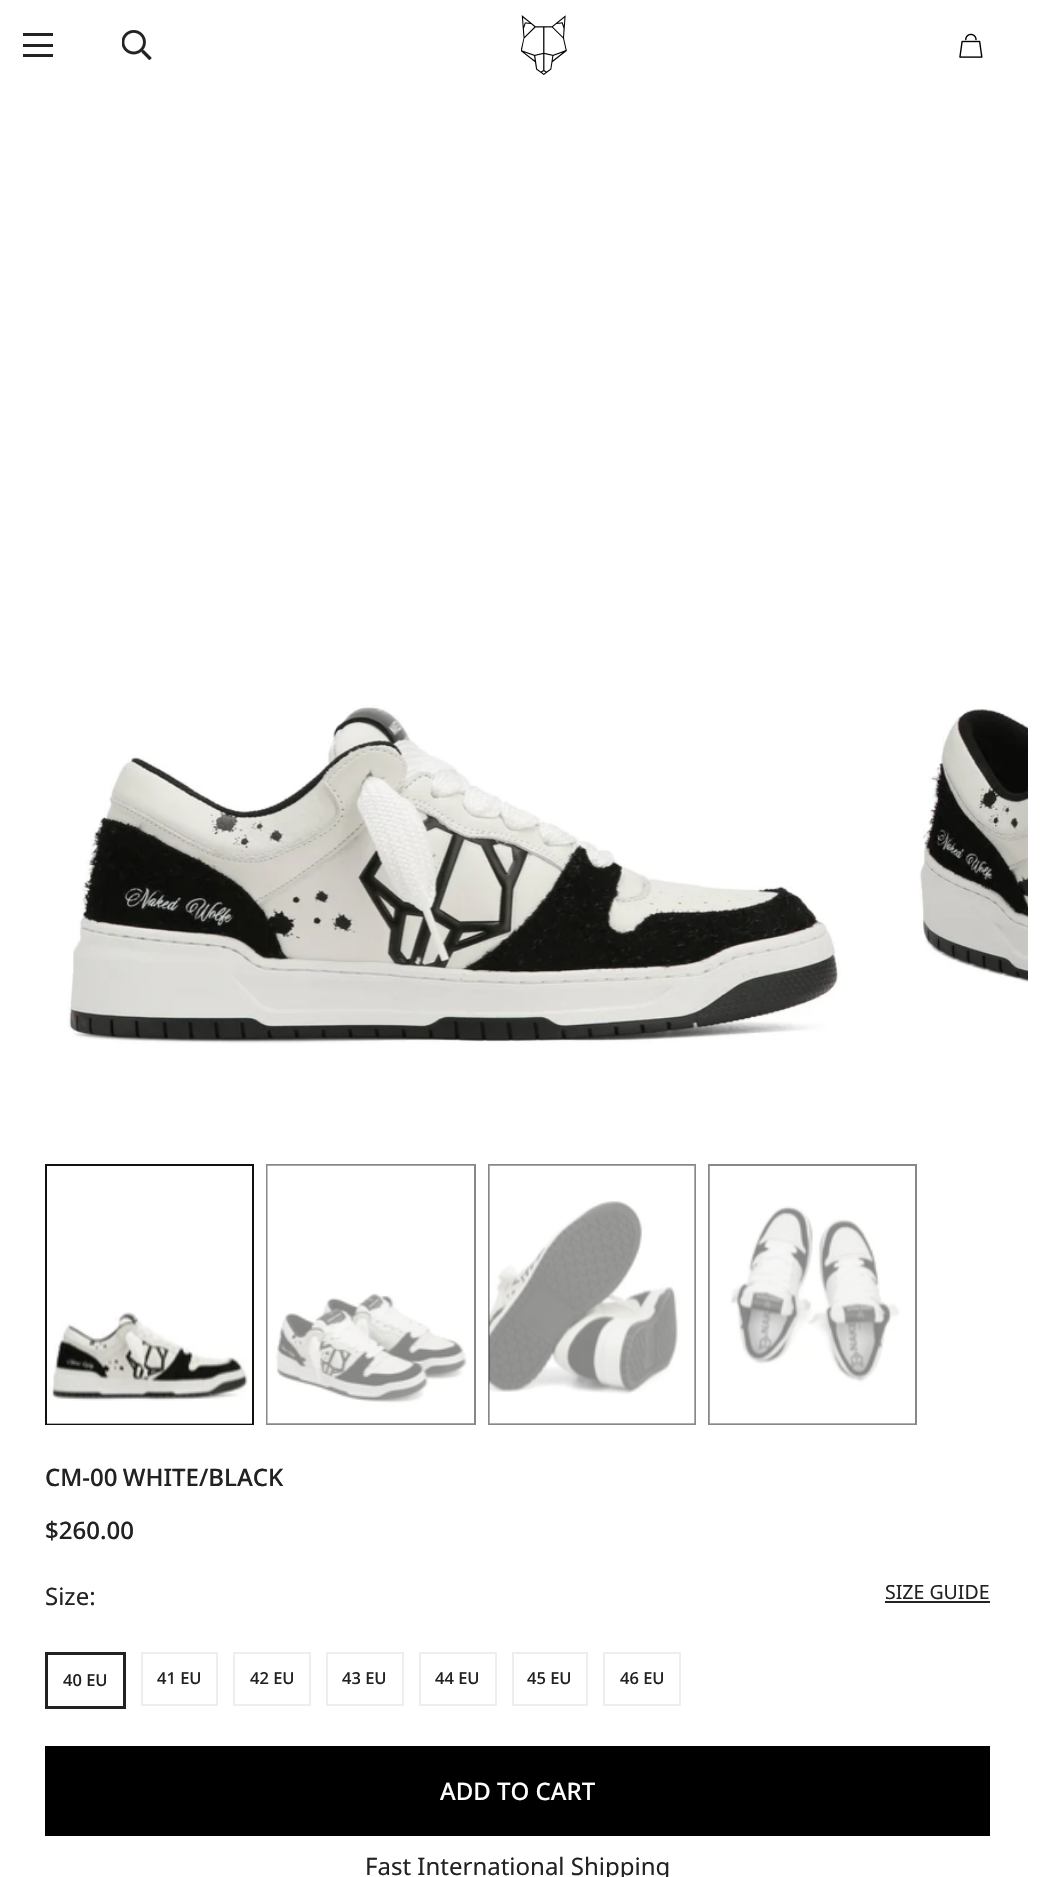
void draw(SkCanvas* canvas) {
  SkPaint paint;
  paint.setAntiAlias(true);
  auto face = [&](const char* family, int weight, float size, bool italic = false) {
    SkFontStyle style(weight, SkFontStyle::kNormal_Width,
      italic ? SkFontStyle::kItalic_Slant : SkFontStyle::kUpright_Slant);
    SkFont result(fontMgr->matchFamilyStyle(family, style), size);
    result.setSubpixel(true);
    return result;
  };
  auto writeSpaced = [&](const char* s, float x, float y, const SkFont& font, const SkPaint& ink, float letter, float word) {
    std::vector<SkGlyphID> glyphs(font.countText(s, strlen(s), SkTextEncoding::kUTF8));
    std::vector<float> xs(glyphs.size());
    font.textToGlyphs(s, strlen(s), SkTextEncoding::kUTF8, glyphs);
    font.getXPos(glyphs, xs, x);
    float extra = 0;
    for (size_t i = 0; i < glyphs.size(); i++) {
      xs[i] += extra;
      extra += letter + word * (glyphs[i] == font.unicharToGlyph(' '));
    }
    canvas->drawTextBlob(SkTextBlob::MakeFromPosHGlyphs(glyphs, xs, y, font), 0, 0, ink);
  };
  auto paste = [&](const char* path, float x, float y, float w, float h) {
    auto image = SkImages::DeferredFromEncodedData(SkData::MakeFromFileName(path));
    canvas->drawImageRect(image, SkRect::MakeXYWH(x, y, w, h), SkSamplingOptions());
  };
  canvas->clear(0xffffffff);
  {
    const struct { float x, y, w, h; SkColor color; } items[] = {
      {23, 44, 30, 3, 0xff222222},
      {23, 33, 30, 3, 0xff222222},
      {23, 54, 30, 3, 0xff222222},
    };
    for (auto [x, y, w, h, color] : items) {
      paint.setColor(color);
      canvas->drawRect(SkRect::MakeXYWH(x, y, w, h), paint);
    }
  }
  paste("img/1.png", 122, 30, 30, 30);
  paste("img/2.png", 521, 15, 46, 60);
  paste("img/3.png", 959, 33, 24, 25);
  paste("img/4.png", 67, 705, 774, 339);
  paste("img/5.png", 919, 708, 109, 275);
  paint.setStroke(true);
  paint.setStrokeWidth(2);
  paint.setColor(0xff111111);
  canvas->drawRect(SkRect::MakeXYWH(46, 1165, 207, 259), paint);
  paste("img/6.png", 47, 1312, 205, 112);
  paint.setColor(0xff888888);
  canvas->drawRect(SkRect::MakeXYWH(267, 1165, 208, 259), paint);
  paste("img/7.png", 267, 1165, 207, 259);
  canvas->drawRect(SkRect::MakeXYWH(489, 1165, 206, 259), paint);
  paste("img/8.png", 489, 1165, 206, 259);
  canvas->drawRect(SkRect::MakeXYWH(709, 1165, 207, 259), paint);
  paste("img/9.png", 709, 1166, 206, 258);
  paint.setStroke(false);
  paint.setColor(0xff222222);
  canvas->drawRect(SkRect::MakeXYWH(885, 1601, 105, 2), paint);
  paint.setStroke(true);
  paint.setStrokeWidth(3);
  canvas->drawRect(SkRect::MakeXYWH(46.5f, 1653.5f, 78, 54), paint);
  paint.setStrokeWidth(2);
  paint.setColor(0xffeeeeee);
  canvas->drawRect(SkRect::MakeXYWH(142, 1653, 75, 52), paint);
  canvas->drawRect(SkRect::MakeXYWH(234, 1653, 76, 52), paint);
  canvas->drawRect(SkRect::MakeXYWH(327, 1653, 76, 52), paint);
  canvas->drawRect(SkRect::MakeXYWH(420, 1653, 76, 52), paint);
  canvas->drawRect(SkRect::MakeXYWH(513, 1653, 74, 52), paint);
  canvas->drawRect(SkRect::MakeXYWH(604, 1653, 76, 52), paint);
  paint.setStroke(false);
  paint.setColor(0xff000000);
  canvas->drawRect(SkRect::MakeXYWH(45, 1746, 945, 90), paint);
  auto f0 = face("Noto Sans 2", 500, 24);
  paint.setColor(0xff222222);
  writeSpaced("CM-00 WHITE/BLACK", 45, 1486, f0, paint, 0, -1);
  auto f1 = face("Noto Sans", 500, 24);
  canvas->drawString("$260.00", 45, 1539, f1, paint);
  auto f2 = face("Noto Sans", 400, 24);
  canvas->drawString("Size:", 45, 1605, f2, paint);
  auto f3 = face("Noto Sans", 400, 19.5f);
  canvas->drawString("SIZE GUIDE", 885, 1599, f3, paint);
  auto f4 = face("Noto Sans", 500, 16.5f);
  {
    const struct { const char* s; float x, y; } items[] = {
      {"40 EU", 63, 1686},
      {"41 EU", 157, 1684},
      {"42 EU", 250, 1684},
      {"43 EU", 342, 1684},
      {"44 EU", 435, 1684},
      {"45 EU", 527, 1684},
      {"46 EU", 620, 1684},
    };
    for (auto [s, x, y] : items) {
      canvas->drawString(s, x, y, f4, paint);
    }
  }
  auto f5 = face("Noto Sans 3", 500, 24);
  paint.setColor(0xffffffff);
  canvas->drawString("ADD TO CART", 440, 1800, f5, paint);
  paint.setColor(0xff222222);
  canvas->drawString("Fast International Shipping", 365, 1875, f2, paint);
}
